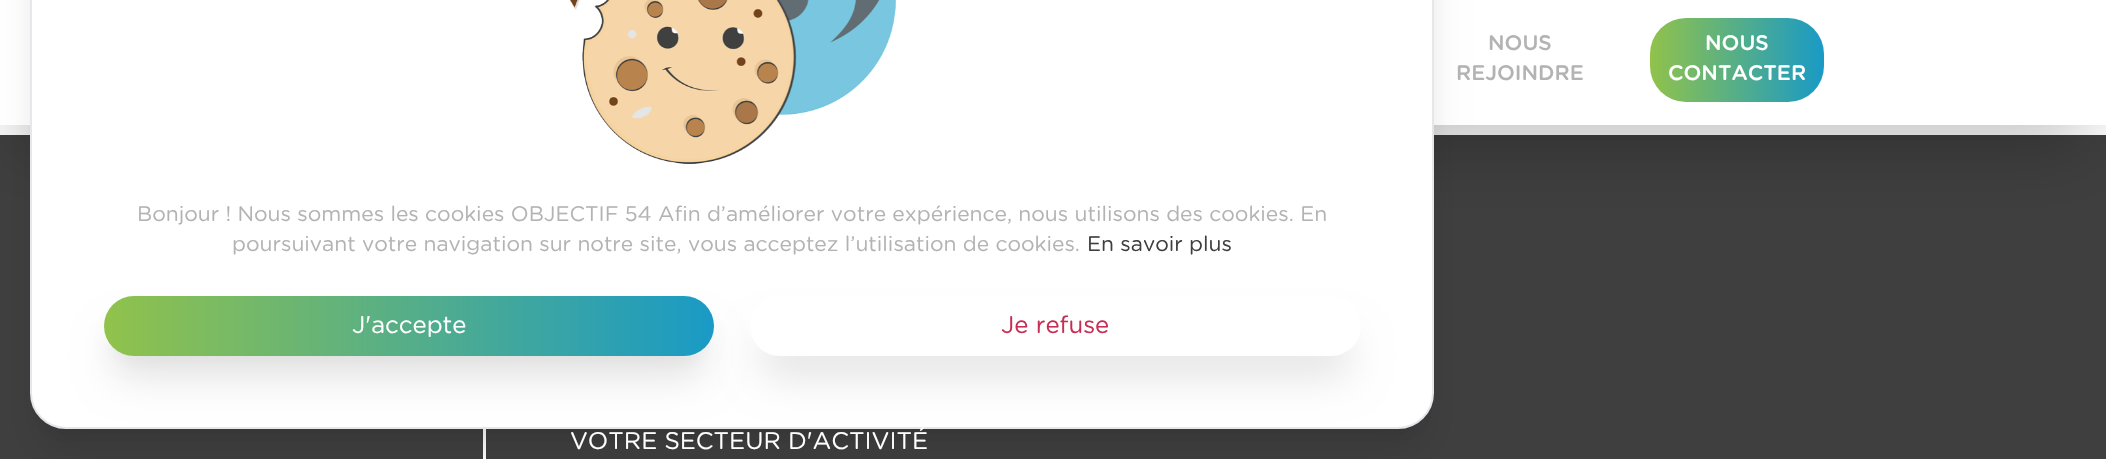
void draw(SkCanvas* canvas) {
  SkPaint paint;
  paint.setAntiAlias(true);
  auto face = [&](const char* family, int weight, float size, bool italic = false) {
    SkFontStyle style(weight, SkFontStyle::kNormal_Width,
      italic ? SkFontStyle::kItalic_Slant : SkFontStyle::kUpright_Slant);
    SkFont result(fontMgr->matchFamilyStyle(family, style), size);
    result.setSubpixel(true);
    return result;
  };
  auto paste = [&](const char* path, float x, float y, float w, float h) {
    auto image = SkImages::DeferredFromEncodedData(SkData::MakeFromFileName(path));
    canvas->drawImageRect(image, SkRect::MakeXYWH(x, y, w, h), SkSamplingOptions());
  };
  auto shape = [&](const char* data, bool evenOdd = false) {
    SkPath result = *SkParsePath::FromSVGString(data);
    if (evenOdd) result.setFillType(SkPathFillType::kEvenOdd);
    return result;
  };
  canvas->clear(0xffffffff);
  paint.setColor(0xff3f3f3f);
  canvas->drawRect(SkRect::MakeXYWH(0, 135, 2106, 324), paint);
  paint.setColor(0x40000000);
  paint.setMaskFilter(SkMaskFilter::MakeBlur(kNormal_SkBlurStyle, 37.5f));
  canvas->drawRect(SkRect::MakeXYWH(18, 56, 2070, 88), paint);
  paint.setMaskFilter(nullptr);
  paint.setColor(0xffffffff);
  canvas->drawRect(SkRect::MakeXYWH(0, 0, 2106, 125), paint);
  {
    const SkColor colors[] = {0xff91c24b, 0xff199ac6};
    const float stops[] = {0, 1};
    const SkPoint ends[] = {{1650, 60}, {1824, 60}};
    paint.setShader(SkGradientShader::MakeLinear(ends, colors, stops, 2, SkTileMode::kClamp));
    paint.setAlpha(255);
  }
  canvas->drawRoundRect(SkRect::MakeXYWH(1650, 18, 174, 84), 36, 36, paint);
  paint.setShader(nullptr);
  paint.setColor(0xffffffff);
  canvas->drawRect(SkRect::MakeXYWH(483, 429, 3, 30), paint);
  paint.setColor(0x0a000000);
  paint.setMaskFilter(SkMaskFilter::MakeBlur(kNormal_SkBlurStyle, 7.5f));
  canvas->drawRoundRect(SkRect::MakeXYWH(38, -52, 1389, 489), 29, 29, paint);
  paint.setMaskFilter(nullptr);
  paint.setColor(0x1a000000);
  paint.setMaskFilter(SkMaskFilter::MakeBlur(kNormal_SkBlurStyle, 19));
  canvas->drawRoundRect(SkRect::MakeXYWH(38, -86, 1389, 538), 29, 29, paint);
  paint.setMaskFilter(nullptr);
  paint.setColor(0xffffffff);
  canvas->drawRoundRect(SkRect::MakeXYWH(31, -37, 1402, 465), 35, 35, paint);
  paint.setStroke(true);
  paint.setStrokeWidth(2);
  paint.setColor(0xffe5e7eb);
  canvas->drawRoundRect(SkRect::MakeXYWH(31, -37, 1402, 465), 35, 35, paint);
  paste("img/1.png", 570, 0, 326, 164);
  paint.setStroke(false);
  paint.setColor(0x0a000000);
  paint.setMaskFilter(SkMaskFilter::MakeBlur(kNormal_SkBlurStyle, 7.5f));
  canvas->drawRoundRect(SkRect::MakeXYWH(111, 318, 596, 45), 22.5f, 22.5f, paint);
  paint.setMaskFilter(nullptr);
  paint.setColor(0x1a000000);
  paint.setMaskFilter(SkMaskFilter::MakeBlur(kNormal_SkBlurStyle, 19));
  canvas->drawRoundRect(SkRect::MakeXYWH(111, 333, 596, 45), 22.5f, 22.5f, paint);
  paint.setMaskFilter(nullptr);
  {
    const SkColor colors[] = {0xff91c24b, 0xff199ac6};
    const float stops[] = {0, 1};
    const SkPoint ends[] = {{104, 326}, {714, 326}};
    paint.setShader(SkGradientShader::MakeLinear(ends, colors, stops, 2, SkTileMode::kClamp));
    paint.setAlpha(255);
  }
  canvas->drawRoundRect(SkRect::MakeXYWH(104, 296, 610, 60), 30, 30, paint);
  canvas->save();
  canvas->clipPath(shape("M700 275H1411V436H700ZM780 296H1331C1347.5 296 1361 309.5 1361 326C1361 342.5 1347.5 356 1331 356H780C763.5 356 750 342.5 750 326C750 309.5 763.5 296 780 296Z", true), true);
  paint.setShader(nullptr);
  paint.setColor(0x1a000000);
  paint.setMaskFilter(SkMaskFilter::MakeBlur(kNormal_SkBlurStyle, 19));
  canvas->drawRoundRect(SkRect::MakeXYWH(758, 333, 595, 45), 22.5f, 22.5f, paint);
  paint.setMaskFilter(nullptr);
  canvas->restore();
  auto f0 = face("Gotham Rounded", 500, 21);
  paint.setColor(0xffb3b3b3);
  canvas->drawString("NOUS", 1488, 50, f0, paint);
  canvas->drawString("REJOINDRE", 1456, 80, f0, paint);
  paint.setColor(0xffffffff);
  canvas->drawString("NOUS", 1705, 50, f0, paint);
  canvas->drawString("CONTACTER", 1668, 80, f0, paint);
  auto f1 = face("Gotham Rounded", 400, 21);
  paint.setColor(0xffb3b3b3);
  canvas->drawString("Bonjour ! Nous sommes les cookies OBJECTIF 54 Afin d’améliorer votre expérience, nous utilisons des cookies. En", 137, 221, f1, paint);
  canvas->drawString("poursuivant votre navigation sur notre site, vous acceptez l’utilisation de cookies.", 232, 251, f1, paint);
  paint.setColor(0xff3f3f3f);
  canvas->drawString("En savoir plus", 1087, 251, f1, paint);
  auto f2 = face("Gotham Rounded", 400, 24);
  paint.setColor(0xffffffff);
  canvas->drawString("J'accepte", 352, 333, f2, paint);
  paint.setColor(0xffc72e55);
  canvas->drawString("Je refuse", 1001, 333, f2, paint);
  paint.setColor(0xffffffff);
  canvas->drawString("VOTRE SECTEUR D'ACTIVITÉ", 570, 449, f2, paint);
}
